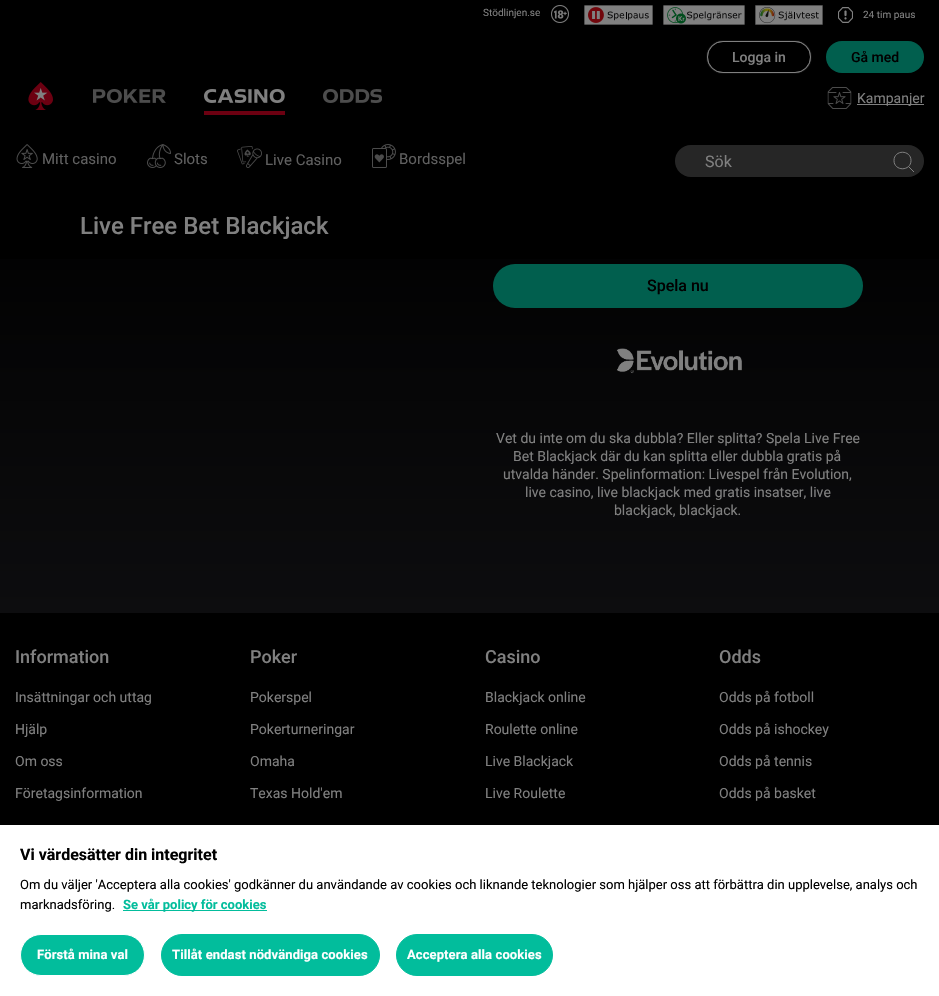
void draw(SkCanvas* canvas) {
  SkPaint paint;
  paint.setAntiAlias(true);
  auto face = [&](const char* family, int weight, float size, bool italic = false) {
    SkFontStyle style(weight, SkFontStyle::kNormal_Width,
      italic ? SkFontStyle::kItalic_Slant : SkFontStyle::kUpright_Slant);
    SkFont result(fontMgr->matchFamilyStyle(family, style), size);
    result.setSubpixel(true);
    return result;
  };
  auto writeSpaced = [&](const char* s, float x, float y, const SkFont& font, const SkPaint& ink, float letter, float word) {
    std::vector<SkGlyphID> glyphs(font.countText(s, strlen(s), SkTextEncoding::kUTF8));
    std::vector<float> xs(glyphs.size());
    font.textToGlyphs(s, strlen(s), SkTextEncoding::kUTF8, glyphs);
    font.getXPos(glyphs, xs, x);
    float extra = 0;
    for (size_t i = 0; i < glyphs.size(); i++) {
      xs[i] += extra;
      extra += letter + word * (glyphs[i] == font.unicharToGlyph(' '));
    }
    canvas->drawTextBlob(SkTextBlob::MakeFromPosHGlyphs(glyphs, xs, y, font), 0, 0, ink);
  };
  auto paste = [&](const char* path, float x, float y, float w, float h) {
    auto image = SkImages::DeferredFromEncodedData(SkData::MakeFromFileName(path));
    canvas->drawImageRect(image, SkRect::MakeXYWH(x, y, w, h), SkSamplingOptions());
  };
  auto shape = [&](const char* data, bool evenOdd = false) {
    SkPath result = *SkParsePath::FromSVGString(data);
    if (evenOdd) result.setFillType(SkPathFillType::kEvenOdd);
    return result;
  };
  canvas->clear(0xff000000);
  paste("img/1.png", 551, 5, 18, 18);
  paste("img/2.png", 584, 5, 69, 20);
  paste("img/3.png", 663, 5, 82, 20);
  paste("img/4.png", 755, 5, 68, 20);
  paste("img/5.png", 838, 7, 15, 16);
  paint.setColor(0xff808080);
  paint.setMaskFilter(SkMaskFilter::MakeBlur(kNormal_SkBlurStyle, 0.5f));
  canvas->drawRoundRect(SkRect::MakeXYWH(707, 41, 104, 32), 16, 16, paint);
  paint.setMaskFilter(nullptr);
  paint.setColor(0xff000000);
  canvas->drawRoundRect(SkRect::MakeXYWH(707.5f, 41.5f, 103, 31), 15.5f, 15.5f, paint);
  paint.setStroke(true);
  paint.setStrokeWidth(1);
  paint.setColor(0xff808080);
  canvas->drawRoundRect(SkRect::MakeXYWH(707.5f, 41.5f, 103, 31), 15.5f, 15.5f, paint);
  paint.setStroke(false);
  paint.setColor(0xff015f4e);
  canvas->drawRoundRect(SkRect::MakeXYWH(826, 41, 98, 32), 16, 16, paint);
  paste("img/6.png", 28, 82, 25, 28);
  paste("img/7.png", 93, 89, 73, 14);
  paint.setColor(0xff6c0011);
  canvas->drawRect(SkRect::MakeXYWH(204, 111, 81, 4), paint);
  paste("img/8.png", 204, 89, 81, 14);
  paste("img/9.png", 323, 89, 59, 14);
  paste("img/10.png", 827, 87, 25, 22);
  paint.setColor(0xff808080);
  canvas->drawRect(SkRect::MakeXYWH(857, 104, 67, 1), paint);
  paste("img/11.png", 16, 144, 22, 24);
  paste("img/12.png", 147, 144, 24, 24);
  paste("img/13.png", 237, 146, 25, 22);
  paste("img/14.png", 372, 144, 24, 24);
  paint.setColor(0xff262626);
  canvas->drawRoundRect(SkRect::MakeXYWH(675, 145, 249, 32), 16, 16, paint);
  paint.setStroke(true);
  paint.setColor(0xff808080);
  canvas->drawPath(shape("M911 160.5C911 171.5 894 171.5 894 160.5C894 149.5 911 149.5 911 160.5ZM908.5 166.5L914 172"), paint);
  paint.setStroke(false);
  {
    const SkColor colors[] = {0xff0d0d0f, 0xff000000};
    const float stops[] = {0, 1};
    const SkPoint ends[] = {{470, 613}, {470, 188}};
    paint.setShader(SkGradientShader::MakeLinear(ends, colors, stops, 2, SkTileMode::kClamp));
    paint.setAlpha(255);
  }
  canvas->drawRect(SkRect::MakeXYWH(0, 259, 939, 354), paint);
  paint.setShader(nullptr);
  paint.setColor(0xff015f4e);
  canvas->drawRoundRect(SkRect::MakeXYWH(493, 264, 370, 44), 22, 22, paint);
  paste("img/15.png", 616, 348, 126, 26);
  paint.setColor(0xffffffff);
  canvas->drawRect(SkRect::MakeXYWH(0, 825, 939, 171), paint);
  paint.setColor(0xff02bd9c);
  canvas->drawRect(SkRect::MakeXYWH(123, 910, 144, 1), paint);
  canvas->drawRoundRect(SkRect::MakeXYWH(20.5f, 934.5f, 124, 41), 20.5f, 20.5f, paint);
  paint.setStroke(true);
  paint.setColor(0xffffffff);
  canvas->drawRoundRect(SkRect::MakeXYWH(20.5f, 934.5f, 124, 41), 20.5f, 20.5f, paint);
  paint.setStroke(false);
  paint.setColor(0xff02bd9c);
  canvas->drawRoundRect(SkRect::MakeXYWH(161.5f, 934.5f, 218, 41), 20.5f, 20.5f, paint);
  paint.setStroke(true);
  canvas->drawRoundRect(SkRect::MakeXYWH(161.5f, 934.5f, 218, 41), 20.5f, 20.5f, paint);
  paint.setStroke(false);
  canvas->drawRoundRect(SkRect::MakeXYWH(396.5f, 934.5f, 156, 41), 20.5f, 20.5f, paint);
  paint.setStroke(true);
  canvas->drawRoundRect(SkRect::MakeXYWH(396.5f, 934.5f, 156, 41), 20.5f, 20.5f, paint);
  auto f0 = face("Roboto", 400, 10);
  paint.setStroke(false);
  paint.setColor(0xff808080);
  canvas->drawString("Stödlinjen.se", 483, 16, f0, paint);
  canvas->drawString("24 tim paus", 863, 18, f0, paint);
  auto f1 = face("Roboto", 500, 14);
  canvas->drawString("Logga in", 732, 62, f1, paint);
  paint.setColor(0xff000000);
  canvas->drawString("Gå med", 851, 62, f1, paint);
  auto f2 = face("Roboto", 400, 14);
  paint.setColor(0xff808080);
  canvas->drawString("Kampanjer", 857, 103, f2, paint);
  auto f3 = face("Roboto", 400, 15);
  paint.setColor(0xff606060);
  {
    const struct { const char* s; float x, y; } items[] = {
      {"Mitt casino", 42, 164},
      {"Slots", 174, 164},
      {"Live Casino", 265, 165},
      {"Bordsspel", 399, 164},
    };
    for (auto [s, x, y] : items) {
      canvas->drawString(s, x, y, f3, paint);
    }
  }
  auto f4 = face("Roboto", 400, 16);
  paint.setColor(0xff808080);
  canvas->drawString("Sök", 705, 167, f4, paint);
  auto f5 = face("Roboto", 500, 24);
  canvas->drawString("Live Free Bet Blackjack", 80, 234, f5, paint);
  auto f6 = face("Roboto", 500, 16);
  paint.setColor(0xff000000);
  canvas->drawString("Spela nu", 647, 291, f6, paint);
  paint.setColor(0xff808080);
  {
    const struct { const char* s; float x, y; } items[] = {
      {"Vet du inte om du ska dubbla? Eller splitta? Spela Live Free", 496, 443},
      {"Bet Blackjack där du kan splitta eller dubbla gratis på", 513, 461},
      {"utvalda händer. Spelinformation: Livespel från Evolution,", 503, 479},
      {"live casino, live blackjack med gratis insatser, live", 525, 497},
      {"blackjack, blackjack.", 614, 515},
    };
    for (auto [s, x, y] : items) {
      canvas->drawString(s, x, y, f2, paint);
    }
  }
  auto f7 = face("Roboto", 500, 18);
  canvas->drawString("Information", 15, 663, f7, paint);
  {
    const struct { const char* s; float x, y; } items[] = {
      {"Insättningar och uttag", 15, 702},
      {"Hjälp", 15, 734},
      {"Om oss", 15, 766},
      {"Företagsinformation", 15, 798},
    };
    for (auto [s, x, y] : items) {
      canvas->drawString(s, x, y, f2, paint);
    }
  }
  canvas->drawString("Poker", 250, 663, f7, paint);
  {
    const struct { const char* s; float x, y; } items[] = {
      {"Pokerspel", 250, 702},
      {"Pokerturneringar", 250, 734},
      {"Omaha", 250, 766},
      {"Texas Hold'em", 250, 798},
    };
    for (auto [s, x, y] : items) {
      canvas->drawString(s, x, y, f2, paint);
    }
  }
  canvas->drawString("Casino", 485, 663, f7, paint);
  {
    const struct { const char* s; float x, y; } items[] = {
      {"Blackjack online", 485, 702},
      {"Roulette online", 485, 734},
      {"Live Blackjack", 485, 766},
      {"Live Roulette", 485, 798},
    };
    for (auto [s, x, y] : items) {
      canvas->drawString(s, x, y, f2, paint);
    }
  }
  canvas->drawString("Odds", 719, 663, f7, paint);
  {
    const struct { const char* s; float x, y; } items[] = {
      {"Odds på fotboll", 719, 702},
      {"Odds på ishockey", 719, 734},
      {"Odds på tennis", 719, 766},
      {"Odds på basket", 719, 798},
    };
    for (auto [s, x, y] : items) {
      canvas->drawString(s, x, y, f2, paint);
    }
  }
  auto f8 = face("Roboto", 700, 16);
  paint.setColor(0xff000000);
  canvas->drawString("Vi värdesätter din integritet", 20, 860, f8, paint);
  auto f9 = face("Roboto", 400, 13);
  canvas->drawString("Om du väljer 'Acceptera alla cookies' godkänner du användande av cookies och liknande teknologier som hjälper oss att förbättra din upplevelse, analys och", 20, 889, f9, paint);
  canvas->drawString("marknadsföring.", 20, 909, f9, paint);
  auto f10 = face("Roboto", 700, 13);
  paint.setColor(0xff02bd9c);
  canvas->drawString("Se vår policy för cookies", 123, 909, f10, paint);
  paint.setColor(0xffffffff);
  {
    const struct { const char* s; float x, y; } items[] = {
      {"Förstå mina val", 37, 959},
      {"Tillåt endast nödvändiga cookies", 172, 959},
      {"Acceptera alla cookies", 407, 959},
    };
    for (auto [s, x, y] : items) {
      writeSpaced(s, x, y, f10, paint, 0.1f, 0);
    }
  }
}
